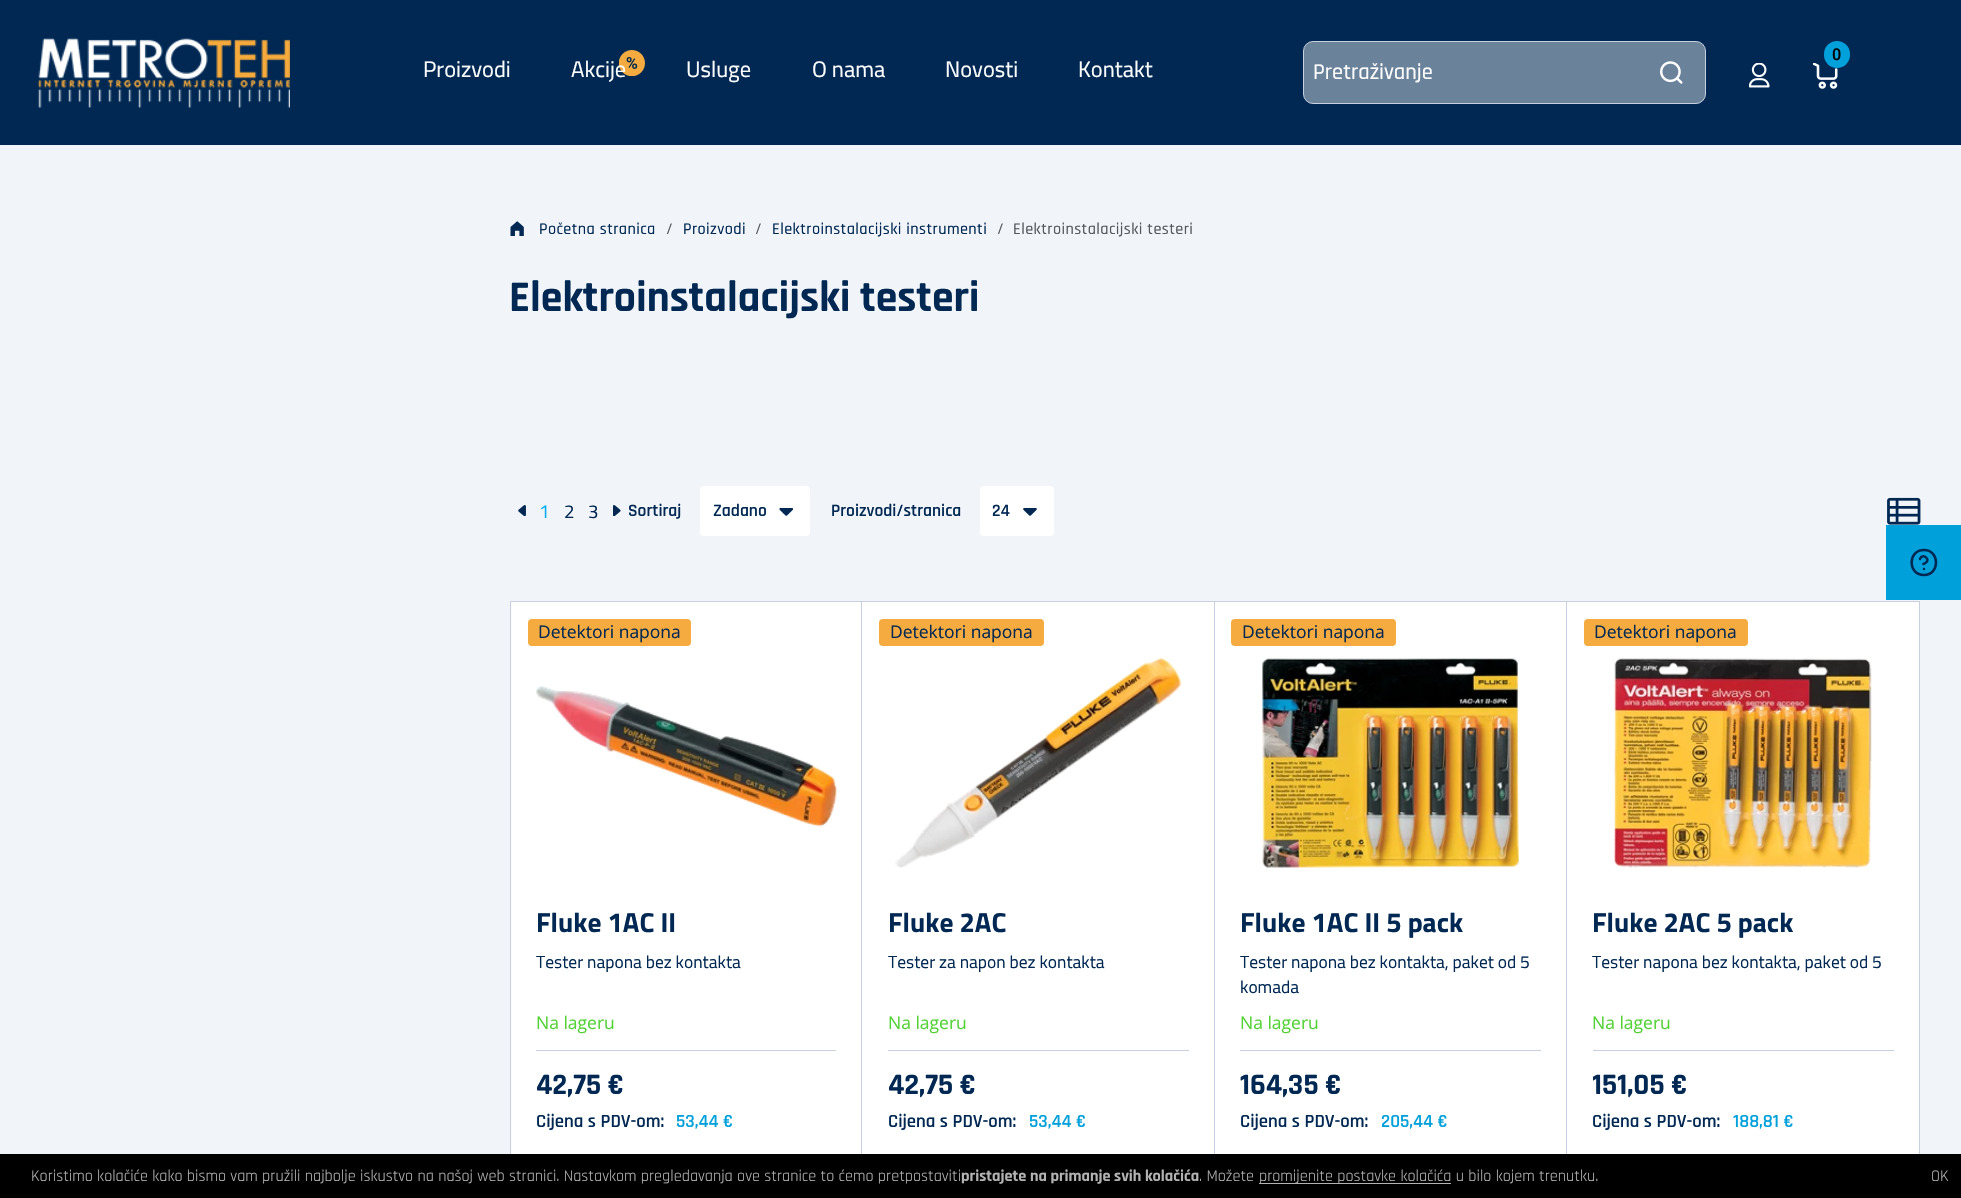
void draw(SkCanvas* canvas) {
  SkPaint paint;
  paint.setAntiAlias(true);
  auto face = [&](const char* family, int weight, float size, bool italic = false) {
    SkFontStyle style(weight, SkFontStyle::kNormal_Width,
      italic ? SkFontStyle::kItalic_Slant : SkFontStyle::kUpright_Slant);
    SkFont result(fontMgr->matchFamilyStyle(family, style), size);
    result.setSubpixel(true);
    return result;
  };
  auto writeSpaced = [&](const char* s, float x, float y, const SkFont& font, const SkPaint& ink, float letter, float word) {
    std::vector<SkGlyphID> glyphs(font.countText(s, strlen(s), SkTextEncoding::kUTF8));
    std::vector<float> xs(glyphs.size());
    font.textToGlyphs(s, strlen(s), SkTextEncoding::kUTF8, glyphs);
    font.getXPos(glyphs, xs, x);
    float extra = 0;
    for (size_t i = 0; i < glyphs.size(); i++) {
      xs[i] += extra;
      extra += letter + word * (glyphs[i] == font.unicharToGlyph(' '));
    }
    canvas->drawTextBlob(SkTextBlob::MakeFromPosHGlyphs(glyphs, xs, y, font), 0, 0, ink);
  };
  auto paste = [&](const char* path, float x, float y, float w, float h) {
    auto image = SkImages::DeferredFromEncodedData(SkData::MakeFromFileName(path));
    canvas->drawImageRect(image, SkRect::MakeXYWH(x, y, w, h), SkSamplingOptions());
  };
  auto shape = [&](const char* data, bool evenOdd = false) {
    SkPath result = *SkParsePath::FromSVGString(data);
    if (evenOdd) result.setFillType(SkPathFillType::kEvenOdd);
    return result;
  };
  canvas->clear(0xfff1f5fa);
  paint.setColor(0xff002853);
  canvas->drawRect(SkRect::MakeXYWH(0, 0, 1961, 145), paint);
  paste("img/1.png", 38, 38, 252, 70);
  paste("img/2.png", 619, 50, 26, 26);
  paste("img/3.png", 1813, 63, 25, 26);
  paint.setColor(0xff00a0db);
  canvas->drawRoundRect(SkRect::MakeXYWH(1824, 41, 26, 27), 13, 13, paint);
  paint.setColor(0xff6b829b);
  canvas->drawRoundRect(SkRect::MakeXYWH(1303.5f, 41.5f, 402, 62), 9.5f, 9.5f, paint);
  paint.setStroke(true);
  paint.setStrokeWidth(1);
  paint.setColor(0xffc6d0df);
  canvas->drawRoundRect(SkRect::MakeXYWH(1303.5f, 41.5f, 402, 62), 9.5f, 9.5f, paint);
  paste("img/4.png", 1660, 61, 23, 23);
  paste("img/5.png", 1749, 63, 21, 25);
  paint.setStroke(false);
  paint.setColor(0xff00a0db);
  canvas->drawRect(SkRect::MakeXYWH(1886, 525, 75, 75), paint);
  paint.setStroke(true);
  paint.setStrokeWidth(2.5f);
  paint.setStrokeCap(SkPaint::kRound_Cap);
  paint.setStrokeJoin(SkPaint::kRound_Join);
  paint.setColor(0xff002853);
  canvas->drawPath(shape("M1924 575C1940 575 1940 550 1924 550C1907.5 550 1907.5 575 1924 575ZM1920 559C1922.5 552 1933 560.5 1923.5 564M1924 569H1924"), paint);
  paste("img/6.png", 510, 221, 14, 15);
  paste("img/7.png", 518, 505, 8, 11);
  paste("img/8.png", 613, 505, 8, 11);
  paint.setStroke(false);
  paint.setColor(0xffffffff);
  canvas->drawRoundRect(SkRect::MakeXYWH(700, 486, 110, 50), 4, 4, paint);
  paste("img/9.png", 779, 508, 14, 8);
  canvas->drawRoundRect(SkRect::MakeXYWH(980, 486, 74, 50), 4, 4, paint);
  paste("img/10.png", 1023, 508, 14, 8);
  paste("img/11.png", 1887, 497, 34, 28);
  canvas->drawRect(SkRect::MakeXYWH(511, 602, 350, 552), paint);
  paint.setStroke(true);
  paint.setStrokeWidth(1);
  paint.setStrokeCap(SkPaint::kButt_Cap);
  paint.setStrokeJoin(SkPaint::kMiter_Join);
  paint.setColor(0xffc6d0df);
  canvas->drawRect(SkRect::MakeXYWH(510.5f, 601.5f, 352, 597), paint);
  paint.setStroke(false);
  paint.setColor(0xfff5ab3f);
  canvas->drawRoundRect(SkRect::MakeXYWH(528, 619, 163, 27), 4, 4, paint);
  paste("img/12.png", 536, 686, 301, 141);
  paint.setColor(0xffc6d0df);
  canvas->drawRect(SkRect::MakeXYWH(536, 1050, 300, 1), paint);
  paint.setColor(0xffffffff);
  canvas->drawRect(SkRect::MakeXYWH(862, 602, 352, 552), paint);
  paint.setStroke(true);
  paint.setColor(0xffc6d0df);
  canvas->drawRect(SkRect::MakeXYWH(861.5f, 601.5f, 353, 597), paint);
  paint.setStroke(false);
  paint.setColor(0xfff5ab3f);
  canvas->drawRoundRect(SkRect::MakeXYWH(879, 619, 165, 27), 4, 4, paint);
  paste("img/13.png", 895, 658, 287, 210);
  paint.setColor(0xffc6d0df);
  canvas->drawRect(SkRect::MakeXYWH(888, 1050, 301, 1), paint);
  paint.setColor(0xffffffff);
  canvas->drawRect(SkRect::MakeXYWH(1215, 602, 351, 552), paint);
  paint.setStroke(true);
  paint.setColor(0xffc6d0df);
  canvas->drawRect(SkRect::MakeXYWH(1214.5f, 601.5f, 353, 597), paint);
  paint.setStroke(false);
  paint.setColor(0xfff5ab3f);
  canvas->drawRoundRect(SkRect::MakeXYWH(1231, 619, 165, 27), 4, 4, paint);
  paste("img/14.png", 1262, 658, 257, 210);
  paint.setColor(0xffc6d0df);
  canvas->drawRect(SkRect::MakeXYWH(1240, 1050, 301, 1), paint);
  paint.setColor(0xffffffff);
  canvas->drawRect(SkRect::MakeXYWH(1567, 602, 352, 552), paint);
  paint.setStroke(true);
  paint.setColor(0xffc6d0df);
  canvas->drawRect(SkRect::MakeXYWH(1566.5f, 601.5f, 353, 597), paint);
  paint.setStroke(false);
  paint.setColor(0xfff5ab3f);
  canvas->drawRoundRect(SkRect::MakeXYWH(1584, 619, 164, 27), 4, 4, paint);
  paste("img/15.png", 1613, 658, 259, 210);
  {
    const struct { float x, y, w, h; SkColor color; } items[] = {
      {1593, 1050, 301, 1, 0xffc6d0df},
      {0, 1154, 1961, 44, 0xff000000},
      {1259, 1183, 192, 1, 0xffb3b3b3},
    };
    for (auto [x, y, w, h, color] : items) {
      paint.setColor(color);
      canvas->drawRect(SkRect::MakeXYWH(x, y, w, h), paint);
    }
  }
  auto f0 = face("Titillium Web", 400, 22.5f);
  paint.setColor(0xffffffff);
  {
    const struct { const char* s; float x, y; } items[] = {
      {"Proizvodi", 423, 77},
      {"Akcije", 571, 77},
      {"Usluge", 686, 77},
      {"O nama", 812, 77},
      {"Novosti", 945, 77},
      {"Kontakt", 1078, 77},
    };
    for (auto [s, x, y] : items) {
      canvas->drawString(s, x, y, f0, paint);
    }
  }
  auto f1 = face("Roboto", 500, 16.25f);
  paint.setColor(0xff000000);
  canvas->drawString("0", 1832, 60, f1, paint);
  auto f2 = face("Rajdhani", 500, 22.5f);
  paint.setColor(0xffffffff);
  canvas->drawString("Pretraživanje", 1313, 79, f2, paint);
  auto f3 = face("Rajdhani", 500, 16.25f);
  paint.setColor(0xff002853);
  writeSpaced("Početna stranica", 539, 234, f3, paint, 0.4f, 0);
  paint.setColor(0xff55595d);
  writeSpaced("/", 666, 234, f3, paint, 0.4f, 0);
  paint.setColor(0xff002853);
  writeSpaced("Proizvodi", 683, 234, f3, paint, 0.4f, 0);
  paint.setColor(0xff55595d);
  writeSpaced("/", 755, 234, f3, paint, 0.4f, 0);
  paint.setColor(0xff002853);
  writeSpaced("Elektroinstalacijski instrumenti", 772, 234, f3, paint, 0.4f, 0);
  paint.setColor(0xff55595d);
  writeSpaced("/", 997, 234, f3, paint, 0.4f, 0);
  writeSpaced("Elektroinstalacijski testeri", 1013, 234, f3, paint, 0.4f, 0);
  auto f4 = face("Rajdhani", 700, 43.75f);
  paint.setColor(0xff002853);
  canvas->drawString("Elektroinstalacijski testeri", 509, 311, f4, paint);
  auto f5 = face("Titillium Web", 400, 18.75f);
  paint.setColor(0xff00aeef);
  canvas->drawString("1", 539, 518, f5, paint);
  paint.setColor(0xff002853);
  canvas->drawString("2", 564, 518, f5, paint);
  canvas->drawString("3", 588, 518, f5, paint);
  auto f6 = face("Rajdhani", 600, 17.5f);
  {
    const struct { const char* s; float x, y; } items[] = {
      {"Sortiraj", 628, 516},
      {"Zadano", 713, 516},
      {"Proizvodi/stranica", 831, 516},
      {"24", 992, 516},
    };
    for (auto [s, x, y] : items) {
      canvas->drawString(s, x, y, f6, paint);
    }
  }
  auto f7 = face("Open Sans", 400, 17.5f);
  canvas->drawString("Detektori napona", 538, 638, f7, paint);
  auto f8 = face("Titillium Web", 700, 27.5f);
  canvas->drawString("Fluke 1AC II", 536, 932, f8, paint);
  auto f9 = face("Titillium Web", 400, 17.5f);
  canvas->drawString("Tester napona bez kontakta", 536, 968, f9, paint);
  paint.setColor(0xff53d236);
  canvas->drawString("Na lageru", 536, 1029, f7, paint);
  auto f10 = face("Rajdhani", 700, 30);
  paint.setColor(0xff002853);
  canvas->drawString("42,75 €", 536, 1094, f10, paint);
  auto f11 = face("Rajdhani", 600, 18.75f);
  canvas->drawString("Cijena s PDV-om:", 536, 1127, f11, paint);
  paint.setColor(0xff00a0db);
  canvas->drawString("53,44 €", 676, 1127, f11, paint);
  paint.setColor(0xff002853);
  canvas->drawString("Detektori napona", 890, 638, f7, paint);
  canvas->drawString("Fluke 2AC", 888, 932, f8, paint);
  canvas->drawString("Tester za napon bez kontakta", 888, 968, f9, paint);
  paint.setColor(0xff53d236);
  canvas->drawString("Na lageru", 888, 1029, f7, paint);
  paint.setColor(0xff002853);
  canvas->drawString("42,75 €", 888, 1094, f10, paint);
  canvas->drawString("Cijena s PDV-om:", 888, 1127, f11, paint);
  paint.setColor(0xff00a0db);
  canvas->drawString("53,44 €", 1029, 1127, f11, paint);
  paint.setColor(0xff002853);
  canvas->drawString("Detektori napona", 1242, 638, f7, paint);
  canvas->drawString("Fluke 1AC II 5 pack", 1240, 932, f8, paint);
  canvas->drawString("Tester napona bez kontakta, paket od 5", 1240, 968, f9, paint);
  canvas->drawString("komada", 1240, 993, f9, paint);
  paint.setColor(0xff53d236);
  canvas->drawString("Na lageru", 1240, 1029, f7, paint);
  paint.setColor(0xff002853);
  canvas->drawString("164,35 €", 1240, 1094, f10, paint);
  canvas->drawString("Cijena s PDV-om:", 1240, 1127, f11, paint);
  paint.setColor(0xff00a0db);
  canvas->drawString("205,44 €", 1381, 1127, f11, paint);
  paint.setColor(0xff002853);
  canvas->drawString("Detektori napona", 1594, 638, f7, paint);
  canvas->drawString("Fluke 2AC 5 pack", 1592, 932, f8, paint);
  canvas->drawString("Tester napona bez kontakta, paket od 5", 1592, 968, f9, paint);
  paint.setColor(0xff53d236);
  canvas->drawString("Na lageru", 1592, 1029, f7, paint);
  canvas->save();
  canvas->clipRect(SkRect::MakeXYWH(1593, 1051, 301, 104));
  paint.setColor(0xff002853);
  canvas->drawString("151,05 €", 1592, 1094, f10, paint);
  canvas->restore();
  canvas->drawString("Cijena s PDV-om:", 1592, 1127, f11, paint);
  paint.setColor(0xff00a0db);
  canvas->drawString("188,81 €", 1733, 1127, f11, paint);
  auto f12 = face("Rajdhani", 400, 16.25f);
  paint.setColor(0xffb3b3b3);
  canvas->drawString("Koristimo kolačiće kako bismo vam pružili najbolje iskustvo na našoj web stranici. Nastavkom pregledavanja ove stranice to ćemo pretpostaviti", 31, 1181, f12, paint);
  auto f13 = face("Rajdhani", 700, 16.25f);
  canvas->drawString("pristajete na primanje svih kolačića", 961, 1181, f13, paint);
  {
    const struct { const char* s; float x, y; } items[] = {
      {". Možete", 1199, 1181},
      {"promijenite postavke kolačića u bilo kojem trenutku.", 1259, 1181},
      {"OK", 1931, 1181},
    };
    for (auto [s, x, y] : items) {
      canvas->drawString(s, x, y, f12, paint);
    }
  }
}
